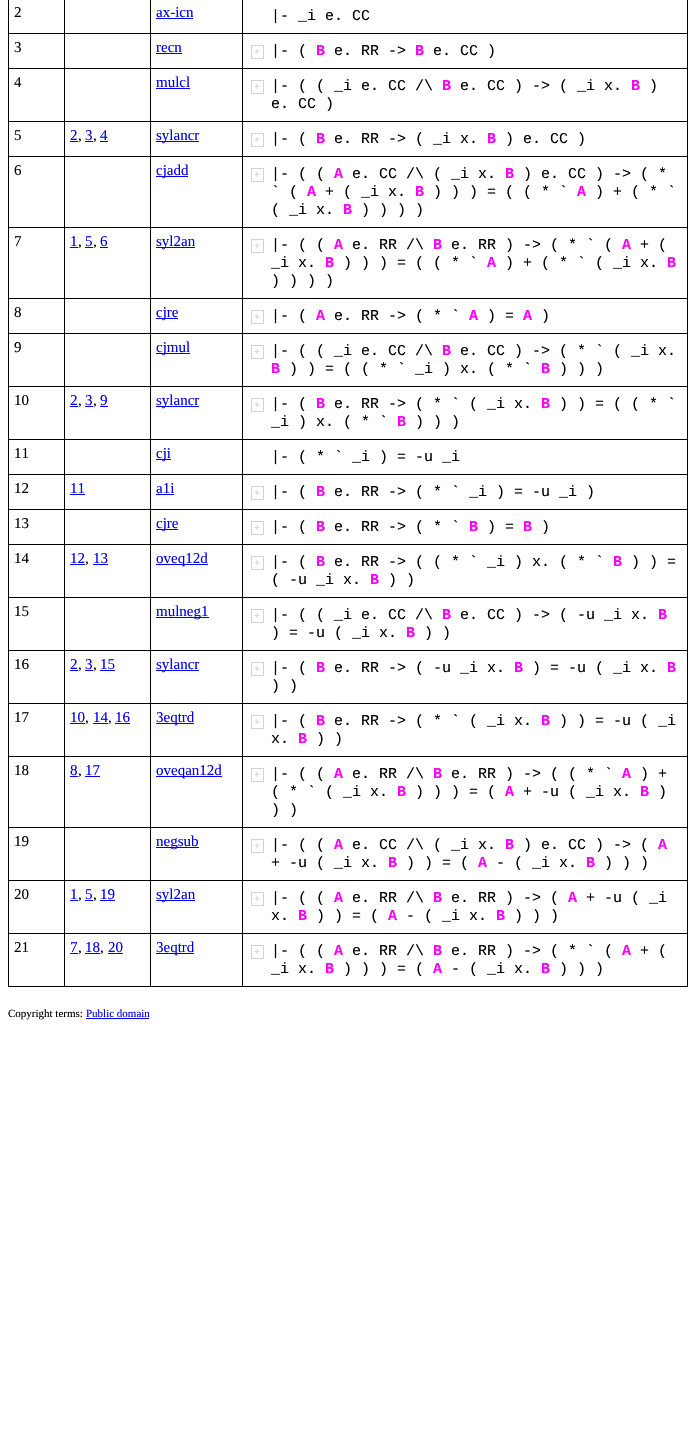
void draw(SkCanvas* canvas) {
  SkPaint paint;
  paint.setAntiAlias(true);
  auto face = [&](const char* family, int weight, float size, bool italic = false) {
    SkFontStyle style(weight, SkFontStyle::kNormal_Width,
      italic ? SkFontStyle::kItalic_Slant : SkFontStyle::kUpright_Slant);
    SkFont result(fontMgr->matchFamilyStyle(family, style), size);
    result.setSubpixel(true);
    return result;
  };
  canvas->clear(0xffffffff);
  {
    const struct { float x, y, w, h; SkColor color; } items[] = {
      {242, 33, 446, 1, 0xff000000},
      {242, 68, 446, 1, 0xff000000},
      {242, 121, 446, 1, 0xff000000},
      {242, 156, 446, 1, 0xff000000},
      {242, 227, 446, 1, 0xff000000},
      {242, 298, 446, 1, 0xff000000},
      {242, 333, 446, 1, 0xff000000},
      {242, 386, 446, 1, 0xff000000},
      {242, 439, 446, 1, 0xff000000},
      {242, 474, 446, 1, 0xff000000},
      {242, 509, 446, 1, 0xff000000},
      {242, 544, 446, 1, 0xff000000},
      {242, 597, 446, 1, 0xff000000},
      {242, 650, 446, 1, 0xff000000},
      {242, 703, 446, 1, 0xff000000},
      {242, 756, 446, 1, 0xff000000},
      {242, 827, 446, 1, 0xff000000},
      {242, 880, 446, 1, 0xff000000},
      {242, 933, 446, 1, 0xff000000},
      {687, 933, 1, 54, 0xff000000},
      {242, 986, 446, 1, 0xff000000},
      {242, 933, 1, 54, 0xff000000},
      {150, 933, 93, 1, 0xff000000},
      {242, 880, 1, 54, 0xff000000},
      {150, 880, 93, 1, 0xff000000},
      {242, 827, 1, 54, 0xff000000},
      {150, 827, 93, 1, 0xff000000},
      {242, 756, 1, 72, 0xff000000},
      {150, 756, 93, 1, 0xff000000},
      {242, 703, 1, 54, 0xff000000},
      {150, 703, 93, 1, 0xff000000},
      {242, 650, 1, 54, 0xff000000},
      {150, 650, 93, 1, 0xff000000},
      {242, 597, 1, 54, 0xff000000},
      {150, 597, 93, 1, 0xff000000},
      {242, 544, 1, 54, 0xff000000},
      {150, 544, 93, 1, 0xff000000},
      {242, 509, 1, 36, 0xff000000},
      {150, 509, 93, 1, 0xff000000},
      {242, 474, 1, 36, 0xff000000},
      {150, 474, 93, 1, 0xff000000},
      {242, 439, 1, 36, 0xff000000},
      {150, 439, 93, 1, 0xff000000},
      {242, 386, 1, 54, 0xff000000},
      {150, 386, 93, 1, 0xff000000},
      {242, 333, 1, 54, 0xff000000},
      {150, 333, 93, 1, 0xff000000},
      {242, 298, 1, 36, 0xff000000},
      {150, 298, 93, 1, 0xff000000},
      {242, 227, 1, 72, 0xff000000},
      {150, 227, 93, 1, 0xff000000},
      {242, 156, 1, 72, 0xff000000},
      {150, 156, 93, 1, 0xff000000},
      {242, 121, 1, 36, 0xff000000},
      {150, 121, 93, 1, 0xff000000},
      {242, 68, 1, 54, 0xff000000},
      {150, 68, 93, 1, 0xff000000},
      {242, 33, 1, 36, 0xff000000},
      {150, 33, 93, 1, 0xff000000},
      {150, 986, 93, 1, 0xff000000},
      {150, 933, 1, 54, 0xff000000},
      {64, 933, 87, 1, 0xff000000},
      {150, 880, 1, 54, 0xff000000},
      {64, 880, 87, 1, 0xff000000},
      {150, 827, 1, 54, 0xff000000},
      {64, 827, 87, 1, 0xff000000},
      {150, 756, 1, 72, 0xff000000},
      {64, 756, 87, 1, 0xff000000},
      {150, 703, 1, 54, 0xff000000},
      {64, 703, 87, 1, 0xff000000},
      {150, 650, 1, 54, 0xff000000},
      {64, 650, 87, 1, 0xff000000},
      {150, 597, 1, 54, 0xff000000},
      {64, 597, 87, 1, 0xff000000},
      {150, 544, 1, 54, 0xff000000},
      {64, 544, 87, 1, 0xff000000},
      {150, 509, 1, 36, 0xff000000},
      {64, 509, 87, 1, 0xff000000},
      {150, 474, 1, 36, 0xff000000},
      {64, 474, 87, 1, 0xff000000},
      {150, 439, 1, 36, 0xff000000},
      {64, 439, 87, 1, 0xff000000},
      {150, 386, 1, 54, 0xff000000},
      {64, 386, 87, 1, 0xff000000},
      {150, 333, 1, 54, 0xff000000},
      {64, 333, 87, 1, 0xff000000},
      {150, 298, 1, 36, 0xff000000},
      {64, 298, 87, 1, 0xff000000},
      {150, 227, 1, 72, 0xff000000},
      {64, 227, 87, 1, 0xff000000},
      {150, 156, 1, 72, 0xff000000},
      {64, 156, 87, 1, 0xff000000},
      {150, 121, 1, 36, 0xff000000},
      {64, 121, 87, 1, 0xff000000},
      {150, 68, 1, 54, 0xff000000},
      {64, 68, 87, 1, 0xff000000},
      {150, 33, 1, 36, 0xff000000},
      {64, 33, 87, 1, 0xff000000},
      {64, 986, 87, 1, 0xff000000},
      {64, 933, 1, 54, 0xff000000},
      {8, 933, 57, 1, 0xff000000},
      {64, 880, 1, 54, 0xff000000},
      {8, 880, 57, 1, 0xff000000},
      {64, 827, 1, 54, 0xff000000},
      {8, 827, 57, 1, 0xff000000},
      {64, 756, 1, 72, 0xff000000},
      {8, 756, 57, 1, 0xff000000},
      {64, 703, 1, 54, 0xff000000},
      {8, 703, 57, 1, 0xff000000},
      {64, 650, 1, 54, 0xff000000},
      {8, 650, 57, 1, 0xff000000},
      {64, 597, 1, 54, 0xff000000},
      {8, 597, 57, 1, 0xff000000},
      {64, 544, 1, 54, 0xff000000},
      {8, 544, 57, 1, 0xff000000},
      {64, 509, 1, 36, 0xff000000},
      {8, 509, 57, 1, 0xff000000},
      {64, 474, 1, 36, 0xff000000},
      {8, 474, 57, 1, 0xff000000},
      {64, 439, 1, 36, 0xff000000},
      {8, 439, 57, 1, 0xff000000},
      {64, 386, 1, 54, 0xff000000},
      {8, 386, 57, 1, 0xff000000},
      {64, 333, 1, 54, 0xff000000},
      {8, 333, 57, 1, 0xff000000},
      {64, 298, 1, 36, 0xff000000},
      {8, 298, 57, 1, 0xff000000},
      {64, 227, 1, 72, 0xff000000},
      {8, 227, 57, 1, 0xff000000},
      {64, 156, 1, 72, 0xff000000},
      {8, 156, 57, 1, 0xff000000},
      {64, 121, 1, 36, 0xff000000},
      {8, 121, 57, 1, 0xff000000},
      {64, 68, 1, 54, 0xff000000},
      {8, 68, 57, 1, 0xff000000},
      {64, 33, 1, 36, 0xff000000},
      {8, 33, 57, 1, 0xff000000},
      {64, 0, 1, 34, 0xff000000},
      {150, 0, 1, 34, 0xff000000},
      {156, 18, 37, 1, 0xff0000ee},
      {242, 0, 1, 34, 0xff000000},
      {8, 986, 57, 1, 0xff000000},
      {8, 933, 1, 54, 0xff000000},
      {8, 880, 1, 54, 0xff000000},
      {8, 827, 1, 54, 0xff000000},
      {8, 756, 1, 72, 0xff000000},
      {8, 703, 1, 54, 0xff000000},
      {8, 650, 1, 54, 0xff000000},
      {8, 597, 1, 54, 0xff000000},
      {8, 544, 1, 54, 0xff000000},
      {8, 509, 1, 36, 0xff000000},
      {8, 474, 1, 36, 0xff000000},
      {8, 439, 1, 36, 0xff000000},
      {8, 386, 1, 54, 0xff000000},
      {8, 333, 1, 54, 0xff000000},
      {8, 298, 1, 36, 0xff000000},
      {8, 227, 1, 72, 0xff000000},
      {8, 156, 1, 72, 0xff000000},
      {8, 121, 1, 36, 0xff000000},
      {8, 68, 1, 54, 0xff000000},
      {8, 0, 1, 69, 0xff000000},
      {156, 53, 26, 1, 0xff0000ee},
      {687, 880, 1, 54, 0xff000000},
      {687, 827, 1, 54, 0xff000000},
      {687, 756, 1, 72, 0xff000000},
      {687, 703, 1, 54, 0xff000000},
      {687, 650, 1, 54, 0xff000000},
      {687, 597, 1, 54, 0xff000000},
      {687, 544, 1, 54, 0xff000000},
      {687, 509, 1, 36, 0xff000000},
      {687, 474, 1, 36, 0xff000000},
      {687, 439, 1, 36, 0xff000000},
      {687, 386, 1, 54, 0xff000000},
      {687, 333, 1, 54, 0xff000000},
      {687, 298, 1, 36, 0xff000000},
      {687, 227, 1, 72, 0xff000000},
      {687, 156, 1, 72, 0xff000000},
      {687, 121, 1, 36, 0xff000000},
      {687, 68, 1, 54, 0xff000000},
      {687, 0, 1, 69, 0xff000000},
    };
    for (auto [x, y, w, h, color] : items) {
      paint.setColor(color);
      canvas->drawRect(SkRect::MakeXYWH(x, y, w, h), paint);
    }
  }
  paint.setStroke(true);
  paint.setStrokeWidth(1);
  paint.setColor(0xffd3d3d3);
  canvas->drawRect(SkRect::MakeXYWH(251.5f, 45.5f, 12, 13), paint);
  paint.setStroke(false);
  paint.setColor(0xff0000ee);
  canvas->drawRect(SkRect::MakeXYWH(156, 88, 34, 1), paint);
  paint.setStroke(true);
  paint.setColor(0xffd3d3d3);
  canvas->drawRect(SkRect::MakeXYWH(251.5f, 80.5f, 12, 13), paint);
  paint.setStroke(false);
  {
    const struct { float x, y, w, h; SkColor color; } items[] = {
      {70, 141, 8, 1, 0xff0000ee},
      {85, 141, 8, 1, 0xff0000ee},
      {100, 141, 8, 1, 0xff0000ee},
      {156, 141, 43, 1, 0xff0000ee},
    };
    for (auto [x, y, w, h, color] : items) {
      paint.setColor(color);
      canvas->drawRect(SkRect::MakeXYWH(x, y, w, h), paint);
    }
  }
  paint.setStroke(true);
  paint.setColor(0xffd3d3d3);
  canvas->drawRect(SkRect::MakeXYWH(251.5f, 133.5f, 12, 13), paint);
  paint.setStroke(false);
  paint.setColor(0xff0000ee);
  canvas->drawRect(SkRect::MakeXYWH(156, 176, 32, 1), paint);
  paint.setStroke(true);
  paint.setColor(0xffd3d3d3);
  canvas->drawRect(SkRect::MakeXYWH(251.5f, 168.5f, 12, 13), paint);
  paint.setStroke(false);
  {
    const struct { float x, y, w, h; SkColor color; } items[] = {
      {70, 247, 8, 1, 0xff0000ee},
      {85, 247, 8, 1, 0xff0000ee},
      {100, 247, 8, 1, 0xff0000ee},
      {156, 247, 39, 1, 0xff0000ee},
    };
    for (auto [x, y, w, h, color] : items) {
      paint.setColor(color);
      canvas->drawRect(SkRect::MakeXYWH(x, y, w, h), paint);
    }
  }
  paint.setStroke(true);
  paint.setColor(0xffd3d3d3);
  canvas->drawRect(SkRect::MakeXYWH(251.5f, 239.5f, 12, 13), paint);
  paint.setStroke(false);
  paint.setColor(0xff0000ee);
  canvas->drawRect(SkRect::MakeXYWH(156, 318, 22, 1), paint);
  paint.setStroke(true);
  paint.setColor(0xffd3d3d3);
  canvas->drawRect(SkRect::MakeXYWH(251.5f, 310.5f, 12, 13), paint);
  paint.setStroke(false);
  paint.setColor(0xff0000ee);
  canvas->drawRect(SkRect::MakeXYWH(156, 353, 34, 1), paint);
  paint.setStroke(true);
  paint.setColor(0xffd3d3d3);
  canvas->drawRect(SkRect::MakeXYWH(251.5f, 345.5f, 12, 13), paint);
  paint.setStroke(false);
  {
    const struct { float x, y, w, h; SkColor color; } items[] = {
      {70, 406, 8, 1, 0xff0000ee},
      {85, 406, 8, 1, 0xff0000ee},
      {100, 406, 8, 1, 0xff0000ee},
      {156, 406, 43, 1, 0xff0000ee},
    };
    for (auto [x, y, w, h, color] : items) {
      paint.setColor(color);
      canvas->drawRect(SkRect::MakeXYWH(x, y, w, h), paint);
    }
  }
  paint.setStroke(true);
  paint.setColor(0xffd3d3d3);
  canvas->drawRect(SkRect::MakeXYWH(251.5f, 398.5f, 12, 13), paint);
  paint.setStroke(false);
  {
    const struct { float x, y, w, h; SkColor color; } items[] = {
      {156, 459, 15, 1, 0xff0000ee},
      {70, 494, 15, 1, 0xff0000ee},
      {156, 494, 18, 1, 0xff0000ee},
    };
    for (auto [x, y, w, h, color] : items) {
      paint.setColor(color);
      canvas->drawRect(SkRect::MakeXYWH(x, y, w, h), paint);
    }
  }
  paint.setStroke(true);
  paint.setColor(0xffd3d3d3);
  canvas->drawRect(SkRect::MakeXYWH(251.5f, 486.5f, 12, 13), paint);
  paint.setStroke(false);
  paint.setColor(0xff0000ee);
  canvas->drawRect(SkRect::MakeXYWH(156, 529, 22, 1), paint);
  paint.setStroke(true);
  paint.setColor(0xffd3d3d3);
  canvas->drawRect(SkRect::MakeXYWH(251.5f, 521.5f, 12, 13), paint);
  paint.setStroke(false);
  {
    const struct { float x, y, w, h; SkColor color; } items[] = {
      {70, 564, 15, 1, 0xff0000ee},
      {93, 564, 15, 1, 0xff0000ee},
      {156, 564, 52, 1, 0xff0000ee},
    };
    for (auto [x, y, w, h, color] : items) {
      paint.setColor(color);
      canvas->drawRect(SkRect::MakeXYWH(x, y, w, h), paint);
    }
  }
  paint.setStroke(true);
  paint.setColor(0xffd3d3d3);
  canvas->drawRect(SkRect::MakeXYWH(251.5f, 556.5f, 12, 13), paint);
  paint.setStroke(false);
  paint.setColor(0xff0000ee);
  canvas->drawRect(SkRect::MakeXYWH(156, 617, 53, 1), paint);
  paint.setStroke(true);
  paint.setColor(0xffd3d3d3);
  canvas->drawRect(SkRect::MakeXYWH(251.5f, 609.5f, 12, 13), paint);
  paint.setStroke(false);
  {
    const struct { float x, y, w, h; SkColor color; } items[] = {
      {70, 670, 8, 1, 0xff0000ee},
      {85, 670, 8, 1, 0xff0000ee},
      {100, 670, 15, 1, 0xff0000ee},
      {156, 670, 43, 1, 0xff0000ee},
    };
    for (auto [x, y, w, h, color] : items) {
      paint.setColor(color);
      canvas->drawRect(SkRect::MakeXYWH(x, y, w, h), paint);
    }
  }
  paint.setStroke(true);
  paint.setColor(0xffd3d3d3);
  canvas->drawRect(SkRect::MakeXYWH(251.5f, 662.5f, 12, 13), paint);
  paint.setStroke(false);
  {
    const struct { float x, y, w, h; SkColor color; } items[] = {
      {70, 723, 15, 1, 0xff0000ee},
      {93, 723, 15, 1, 0xff0000ee},
      {115, 723, 15, 1, 0xff0000ee},
      {156, 723, 38, 1, 0xff0000ee},
    };
    for (auto [x, y, w, h, color] : items) {
      paint.setColor(color);
      canvas->drawRect(SkRect::MakeXYWH(x, y, w, h), paint);
    }
  }
  paint.setStroke(true);
  paint.setColor(0xffd3d3d3);
  canvas->drawRect(SkRect::MakeXYWH(251.5f, 715.5f, 12, 13), paint);
  paint.setStroke(false);
  {
    const struct { float x, y, w, h; SkColor color; } items[] = {
      {70, 776, 8, 1, 0xff0000ee},
      {85, 776, 15, 1, 0xff0000ee},
      {156, 776, 66, 1, 0xff0000ee},
    };
    for (auto [x, y, w, h, color] : items) {
      paint.setColor(color);
      canvas->drawRect(SkRect::MakeXYWH(x, y, w, h), paint);
    }
  }
  paint.setStroke(true);
  paint.setColor(0xffd3d3d3);
  canvas->drawRect(SkRect::MakeXYWH(251.5f, 768.5f, 12, 13), paint);
  paint.setStroke(false);
  paint.setColor(0xff0000ee);
  canvas->drawRect(SkRect::MakeXYWH(156, 847, 43, 1), paint);
  paint.setStroke(true);
  paint.setColor(0xffd3d3d3);
  canvas->drawRect(SkRect::MakeXYWH(251.5f, 839.5f, 12, 13), paint);
  paint.setStroke(false);
  {
    const struct { float x, y, w, h; SkColor color; } items[] = {
      {70, 900, 8, 1, 0xff0000ee},
      {85, 900, 8, 1, 0xff0000ee},
      {100, 900, 15, 1, 0xff0000ee},
      {156, 900, 39, 1, 0xff0000ee},
    };
    for (auto [x, y, w, h, color] : items) {
      paint.setColor(color);
      canvas->drawRect(SkRect::MakeXYWH(x, y, w, h), paint);
    }
  }
  paint.setStroke(true);
  paint.setColor(0xffd3d3d3);
  canvas->drawRect(SkRect::MakeXYWH(251.5f, 892.5f, 12, 13), paint);
  paint.setStroke(false);
  {
    const struct { float x, y, w, h; SkColor color; } items[] = {
      {70, 953, 8, 1, 0xff0000ee},
      {85, 953, 15, 1, 0xff0000ee},
      {108, 953, 15, 1, 0xff0000ee},
      {156, 953, 38, 1, 0xff0000ee},
    };
    for (auto [x, y, w, h, color] : items) {
      paint.setColor(color);
      canvas->drawRect(SkRect::MakeXYWH(x, y, w, h), paint);
    }
  }
  paint.setStroke(true);
  paint.setColor(0xffd3d3d3);
  canvas->drawRect(SkRect::MakeXYWH(251.5f, 945.5f, 12, 13), paint);
  paint.setStroke(false);
  paint.setColor(0xff0000ee);
  canvas->drawRect(SkRect::MakeXYWH(86, 1018, 63, 1), paint);
  auto f0 = face("Liberation Serif", 400, 15);
  paint.setColor(0xff000000);
  canvas->drawString("2", 14, 17, f0, paint);
  paint.setColor(0xff0000ee);
  canvas->drawString("ax-icn", 156, 17, f0, paint);
  auto f1 = face("Liberation Mono", 400, 15);
  paint.setColor(0xff000000);
  canvas->drawString("|- _i e. CC", 271, 20, f1, paint);
  canvas->drawString("3", 14, 52, f0, paint);
  paint.setColor(0xff0000ee);
  canvas->drawString("recn", 156, 52, f0, paint);
  auto f2 = face("Liberation Mono", 400, 10);
  paint.setColor(0xffd3d3d3);
  canvas->drawString("+", 254, 55, f2, paint);
  paint.setColor(0xff000000);
  canvas->drawString("|- (", 271, 55, f1, paint);
  auto f3 = face("Liberation Mono", 700, 15);
  paint.setColor(0xffff00ff);
  canvas->drawString("B", 316, 55, f3, paint);
  paint.setColor(0xff000000);
  canvas->drawString("e. RR ->", 334, 55, f1, paint);
  paint.setColor(0xffff00ff);
  canvas->drawString("B", 415, 55, f3, paint);
  paint.setColor(0xff000000);
  canvas->drawString("e. CC )", 433, 55, f1, paint);
  canvas->drawString("4", 14, 87, f0, paint);
  paint.setColor(0xff0000ee);
  canvas->drawString("mulcl", 156, 87, f0, paint);
  paint.setColor(0xffd3d3d3);
  canvas->drawString("+", 254, 90, f2, paint);
  paint.setColor(0xff000000);
  canvas->drawString("|- ( ( _i e. CC /\\", 271, 90, f1, paint);
  paint.setColor(0xffff00ff);
  canvas->drawString("B", 442, 90, f3, paint);
  paint.setColor(0xff000000);
  canvas->drawString("e. CC ) -> ( _i x.", 460, 90, f1, paint);
  paint.setColor(0xffff00ff);
  canvas->drawString("B", 631, 90, f3, paint);
  paint.setColor(0xff000000);
  canvas->drawString(")", 649, 90, f1, paint);
  canvas->drawString("e. CC )", 271, 108, f1, paint);
  canvas->drawString("5", 14, 140, f0, paint);
  paint.setColor(0xff0000ee);
  {
    const struct { const char* s; float x, y; } items[] = {
      {"2", 70, 140},
      {"3", 85, 140},
      {"4", 100, 140},
    };
    for (auto [s, x, y] : items) {
      canvas->drawString(s, x, y, f0, paint);
    }
  }
  paint.setColor(0xff000000);
  canvas->drawString(",", 78, 140, f0, paint);
  canvas->drawString(",", 93, 140, f0, paint);
  paint.setColor(0xff0000ee);
  canvas->drawString("sylancr", 156, 140, f0, paint);
  paint.setColor(0xffd3d3d3);
  canvas->drawString("+", 254, 143, f2, paint);
  paint.setColor(0xff000000);
  canvas->drawString("|- (", 271, 143, f1, paint);
  paint.setColor(0xffff00ff);
  canvas->drawString("B", 316, 143, f3, paint);
  paint.setColor(0xff000000);
  canvas->drawString("e. RR -> ( _i x.", 334, 143, f1, paint);
  paint.setColor(0xffff00ff);
  canvas->drawString("B", 487, 143, f3, paint);
  paint.setColor(0xff000000);
  canvas->drawString(") e. CC )", 505, 143, f1, paint);
  canvas->drawString("6", 14, 175, f0, paint);
  paint.setColor(0xff0000ee);
  canvas->drawString("cjadd", 156, 175, f0, paint);
  paint.setColor(0xffd3d3d3);
  canvas->drawString("+", 254, 178, f2, paint);
  paint.setColor(0xff000000);
  canvas->drawString("|- ( (", 271, 178, f1, paint);
  paint.setColor(0xffff00ff);
  canvas->drawString("A", 334, 178, f3, paint);
  paint.setColor(0xff000000);
  canvas->drawString("e. CC /\\ ( _i x.", 352, 178, f1, paint);
  paint.setColor(0xffff00ff);
  canvas->drawString("B", 505, 178, f3, paint);
  paint.setColor(0xff000000);
  canvas->drawString(") e. CC ) -> ( *", 523, 178, f1, paint);
  canvas->drawString("` (", 271, 196, f1, paint);
  paint.setColor(0xffff00ff);
  canvas->drawString("A", 307, 196, f3, paint);
  paint.setColor(0xff000000);
  canvas->drawString("+ ( _i x.", 325, 196, f1, paint);
  paint.setColor(0xffff00ff);
  canvas->drawString("B", 415, 196, f3, paint);
  paint.setColor(0xff000000);
  canvas->drawString(") ) ) = ( ( * `", 433, 196, f1, paint);
  paint.setColor(0xffff00ff);
  canvas->drawString("A", 577, 196, f3, paint);
  paint.setColor(0xff000000);
  canvas->drawString(") + ( * `", 595, 196, f1, paint);
  canvas->drawString("( _i x.", 271, 214, f1, paint);
  paint.setColor(0xffff00ff);
  canvas->drawString("B", 343, 214, f3, paint);
  paint.setColor(0xff000000);
  canvas->drawString(") ) ) )", 361, 214, f1, paint);
  canvas->drawString("7", 14, 246, f0, paint);
  paint.setColor(0xff0000ee);
  canvas->drawString("1", 70, 246, f0, paint);
  paint.setColor(0xff000000);
  canvas->drawString(",", 78, 246, f0, paint);
  paint.setColor(0xff0000ee);
  canvas->drawString("5", 85, 246, f0, paint);
  paint.setColor(0xff000000);
  canvas->drawString(",", 93, 246, f0, paint);
  paint.setColor(0xff0000ee);
  canvas->drawString("6", 100, 246, f0, paint);
  canvas->drawString("syl2an", 156, 246, f0, paint);
  paint.setColor(0xffd3d3d3);
  canvas->drawString("+", 254, 249, f2, paint);
  paint.setColor(0xff000000);
  canvas->drawString("|- ( (", 271, 249, f1, paint);
  paint.setColor(0xffff00ff);
  canvas->drawString("A", 334, 249, f3, paint);
  paint.setColor(0xff000000);
  canvas->drawString("e. RR /\\", 352, 249, f1, paint);
  paint.setColor(0xffff00ff);
  canvas->drawString("B", 433, 249, f3, paint);
  paint.setColor(0xff000000);
  canvas->drawString("e. RR ) -> ( * ` (", 451, 249, f1, paint);
  paint.setColor(0xffff00ff);
  canvas->drawString("A", 622, 249, f3, paint);
  paint.setColor(0xff000000);
  canvas->drawString("+ (", 640, 249, f1, paint);
  canvas->drawString("_i x.", 271, 267, f1, paint);
  paint.setColor(0xffff00ff);
  canvas->drawString("B", 325, 267, f3, paint);
  paint.setColor(0xff000000);
  canvas->drawString(") ) ) = ( ( * `", 343, 267, f1, paint);
  paint.setColor(0xffff00ff);
  canvas->drawString("A", 487, 267, f3, paint);
  paint.setColor(0xff000000);
  canvas->drawString(") + ( * ` ( _i x.", 505, 267, f1, paint);
  paint.setColor(0xffff00ff);
  canvas->drawString("B", 667, 267, f3, paint);
  paint.setColor(0xff000000);
  canvas->drawString(") ) ) )", 271, 285, f1, paint);
  canvas->drawString("8", 14, 317, f0, paint);
  paint.setColor(0xff0000ee);
  canvas->drawString("cjre", 156, 317, f0, paint);
  paint.setColor(0xffd3d3d3);
  canvas->drawString("+", 254, 320, f2, paint);
  paint.setColor(0xff000000);
  canvas->drawString("|- (", 271, 320, f1, paint);
  paint.setColor(0xffff00ff);
  canvas->drawString("A", 316, 320, f3, paint);
  paint.setColor(0xff000000);
  canvas->drawString("e. RR -> ( * `", 334, 320, f1, paint);
  paint.setColor(0xffff00ff);
  canvas->drawString("A", 469, 320, f3, paint);
  paint.setColor(0xff000000);
  canvas->drawString(") =", 487, 320, f1, paint);
  paint.setColor(0xffff00ff);
  canvas->drawString("A", 523, 320, f3, paint);
  paint.setColor(0xff000000);
  canvas->drawString(")", 541, 320, f1, paint);
  canvas->drawString("9", 14, 352, f0, paint);
  paint.setColor(0xff0000ee);
  canvas->drawString("cjmul", 156, 352, f0, paint);
  paint.setColor(0xffd3d3d3);
  canvas->drawString("+", 254, 355, f2, paint);
  paint.setColor(0xff000000);
  canvas->drawString("|- ( ( _i e. CC /\\", 271, 355, f1, paint);
  paint.setColor(0xffff00ff);
  canvas->drawString("B", 442, 355, f3, paint);
  paint.setColor(0xff000000);
  canvas->drawString("e. CC ) -> ( * ` ( _i x.", 460, 355, f1, paint);
  paint.setColor(0xffff00ff);
  canvas->drawString("B", 271, 373, f3, paint);
  paint.setColor(0xff000000);
  canvas->drawString(") ) = ( ( * ` _i ) x. ( * `", 289, 373, f1, paint);
  paint.setColor(0xffff00ff);
  canvas->drawString("B", 541, 373, f3, paint);
  paint.setColor(0xff000000);
  canvas->drawString(") ) )", 559, 373, f1, paint);
  canvas->drawString("10", 14, 405, f0, paint);
  paint.setColor(0xff0000ee);
  canvas->drawString("2", 70, 405, f0, paint);
  paint.setColor(0xff000000);
  canvas->drawString(",", 78, 405, f0, paint);
  paint.setColor(0xff0000ee);
  canvas->drawString("3", 85, 405, f0, paint);
  paint.setColor(0xff000000);
  canvas->drawString(",", 93, 405, f0, paint);
  paint.setColor(0xff0000ee);
  canvas->drawString("9", 100, 405, f0, paint);
  canvas->drawString("sylancr", 156, 405, f0, paint);
  paint.setColor(0xffd3d3d3);
  canvas->drawString("+", 254, 408, f2, paint);
  paint.setColor(0xff000000);
  canvas->drawString("|- (", 271, 408, f1, paint);
  paint.setColor(0xffff00ff);
  canvas->drawString("B", 316, 408, f3, paint);
  paint.setColor(0xff000000);
  canvas->drawString("e. RR -> ( * ` ( _i x.", 334, 408, f1, paint);
  paint.setColor(0xffff00ff);
  canvas->drawString("B", 541, 408, f3, paint);
  paint.setColor(0xff000000);
  canvas->drawString(") ) = ( ( * `", 559, 408, f1, paint);
  canvas->drawString("_i ) x. ( * `", 271, 426, f1, paint);
  paint.setColor(0xffff00ff);
  canvas->drawString("B", 397, 426, f3, paint);
  paint.setColor(0xff000000);
  canvas->drawString(") ) )", 415, 426, f1, paint);
  canvas->drawString("11", 14, 458, f0, paint);
  paint.setColor(0xff0000ee);
  canvas->drawString("cji", 156, 458, f0, paint);
  paint.setColor(0xff000000);
  canvas->drawString("|- ( * ` _i ) = -u _i", 271, 461, f1, paint);
  canvas->drawString("12", 14, 493, f0, paint);
  paint.setColor(0xff0000ee);
  canvas->drawString("11", 70, 493, f0, paint);
  canvas->drawString("a1i", 156, 493, f0, paint);
  paint.setColor(0xffd3d3d3);
  canvas->drawString("+", 254, 496, f2, paint);
  paint.setColor(0xff000000);
  canvas->drawString("|- (", 271, 496, f1, paint);
  paint.setColor(0xffff00ff);
  canvas->drawString("B", 316, 496, f3, paint);
  paint.setColor(0xff000000);
  canvas->drawString("e. RR -> ( * ` _i ) = -u _i )", 334, 496, f1, paint);
  canvas->drawString("13", 14, 528, f0, paint);
  paint.setColor(0xff0000ee);
  canvas->drawString("cjre", 156, 528, f0, paint);
  paint.setColor(0xffd3d3d3);
  canvas->drawString("+", 254, 531, f2, paint);
  paint.setColor(0xff000000);
  canvas->drawString("|- (", 271, 531, f1, paint);
  paint.setColor(0xffff00ff);
  canvas->drawString("B", 316, 531, f3, paint);
  paint.setColor(0xff000000);
  canvas->drawString("e. RR -> ( * `", 334, 531, f1, paint);
  paint.setColor(0xffff00ff);
  canvas->drawString("B", 469, 531, f3, paint);
  paint.setColor(0xff000000);
  canvas->drawString(") =", 487, 531, f1, paint);
  paint.setColor(0xffff00ff);
  canvas->drawString("B", 523, 531, f3, paint);
  paint.setColor(0xff000000);
  canvas->drawString(")", 541, 531, f1, paint);
  canvas->drawString("14", 14, 563, f0, paint);
  paint.setColor(0xff0000ee);
  canvas->drawString("12", 70, 563, f0, paint);
  paint.setColor(0xff000000);
  canvas->drawString(",", 85, 563, f0, paint);
  paint.setColor(0xff0000ee);
  canvas->drawString("13", 93, 563, f0, paint);
  canvas->drawString("oveq12d", 156, 563, f0, paint);
  paint.setColor(0xffd3d3d3);
  canvas->drawString("+", 254, 566, f2, paint);
  paint.setColor(0xff000000);
  canvas->drawString("|- (", 271, 566, f1, paint);
  paint.setColor(0xffff00ff);
  canvas->drawString("B", 316, 566, f3, paint);
  paint.setColor(0xff000000);
  canvas->drawString("e. RR -> ( ( * ` _i ) x. ( * `", 334, 566, f1, paint);
  paint.setColor(0xffff00ff);
  canvas->drawString("B", 613, 566, f3, paint);
  paint.setColor(0xff000000);
  canvas->drawString(") ) =", 631, 566, f1, paint);
  canvas->drawString("( -u _i x.", 271, 584, f1, paint);
  paint.setColor(0xffff00ff);
  canvas->drawString("B", 370, 584, f3, paint);
  paint.setColor(0xff000000);
  canvas->drawString(") )", 388, 584, f1, paint);
  canvas->drawString("15", 14, 616, f0, paint);
  paint.setColor(0xff0000ee);
  canvas->drawString("mulneg1", 156, 616, f0, paint);
  paint.setColor(0xffd3d3d3);
  canvas->drawString("+", 254, 619, f2, paint);
  paint.setColor(0xff000000);
  canvas->drawString("|- ( ( _i e. CC /\\", 271, 619, f1, paint);
  paint.setColor(0xffff00ff);
  canvas->drawString("B", 442, 619, f3, paint);
  paint.setColor(0xff000000);
  canvas->drawString("e. CC ) -> ( -u _i x.", 460, 619, f1, paint);
  paint.setColor(0xffff00ff);
  canvas->drawString("B", 658, 619, f3, paint);
  paint.setColor(0xff000000);
  canvas->drawString(") = -u ( _i x.", 271, 637, f1, paint);
  paint.setColor(0xffff00ff);
  canvas->drawString("B", 406, 637, f3, paint);
  paint.setColor(0xff000000);
  canvas->drawString(") )", 424, 637, f1, paint);
  canvas->drawString("16", 14, 669, f0, paint);
  paint.setColor(0xff0000ee);
  canvas->drawString("2", 70, 669, f0, paint);
  paint.setColor(0xff000000);
  canvas->drawString(",", 78, 669, f0, paint);
  paint.setColor(0xff0000ee);
  canvas->drawString("3", 85, 669, f0, paint);
  paint.setColor(0xff000000);
  canvas->drawString(",", 93, 669, f0, paint);
  paint.setColor(0xff0000ee);
  canvas->drawString("15", 100, 669, f0, paint);
  canvas->drawString("sylancr", 156, 669, f0, paint);
  paint.setColor(0xffd3d3d3);
  canvas->drawString("+", 254, 672, f2, paint);
  paint.setColor(0xff000000);
  canvas->drawString("|- (", 271, 672, f1, paint);
  paint.setColor(0xffff00ff);
  canvas->drawString("B", 316, 672, f3, paint);
  paint.setColor(0xff000000);
  canvas->drawString("e. RR -> ( -u _i x.", 334, 672, f1, paint);
  paint.setColor(0xffff00ff);
  canvas->drawString("B", 514, 672, f3, paint);
  paint.setColor(0xff000000);
  canvas->drawString(") = -u ( _i x.", 532, 672, f1, paint);
  paint.setColor(0xffff00ff);
  canvas->drawString("B", 667, 672, f3, paint);
  paint.setColor(0xff000000);
  canvas->drawString(") )", 271, 690, f1, paint);
  canvas->drawString("17", 14, 722, f0, paint);
  paint.setColor(0xff0000ee);
  canvas->drawString("10", 70, 722, f0, paint);
  paint.setColor(0xff000000);
  canvas->drawString(",", 85, 722, f0, paint);
  paint.setColor(0xff0000ee);
  canvas->drawString("14", 93, 722, f0, paint);
  paint.setColor(0xff000000);
  canvas->drawString(",", 108, 722, f0, paint);
  paint.setColor(0xff0000ee);
  canvas->drawString("16", 115, 722, f0, paint);
  canvas->drawString("3eqtrd", 156, 722, f0, paint);
  paint.setColor(0xffd3d3d3);
  canvas->drawString("+", 254, 725, f2, paint);
  paint.setColor(0xff000000);
  canvas->drawString("|- (", 271, 725, f1, paint);
  paint.setColor(0xffff00ff);
  canvas->drawString("B", 316, 725, f3, paint);
  paint.setColor(0xff000000);
  canvas->drawString("e. RR -> ( * ` ( _i x.", 334, 725, f1, paint);
  paint.setColor(0xffff00ff);
  canvas->drawString("B", 541, 725, f3, paint);
  paint.setColor(0xff000000);
  canvas->drawString(") ) = -u ( _i", 559, 725, f1, paint);
  canvas->drawString("x.", 271, 743, f1, paint);
  paint.setColor(0xffff00ff);
  canvas->drawString("B", 298, 743, f3, paint);
  paint.setColor(0xff000000);
  canvas->drawString(") )", 316, 743, f1, paint);
  canvas->drawString("18", 14, 775, f0, paint);
  paint.setColor(0xff0000ee);
  canvas->drawString("8", 70, 775, f0, paint);
  canvas->drawString("17", 85, 775, f0, paint);
  paint.setColor(0xff000000);
  canvas->drawString(",", 78, 775, f0, paint);
  paint.setColor(0xff0000ee);
  canvas->drawString("oveqan12d", 156, 775, f0, paint);
  paint.setColor(0xffd3d3d3);
  canvas->drawString("+", 254, 778, f2, paint);
  paint.setColor(0xff000000);
  canvas->drawString("|- ( (", 271, 778, f1, paint);
  paint.setColor(0xffff00ff);
  canvas->drawString("A", 334, 778, f3, paint);
  paint.setColor(0xff000000);
  canvas->drawString("e. RR /\\", 352, 778, f1, paint);
  paint.setColor(0xffff00ff);
  canvas->drawString("B", 433, 778, f3, paint);
  paint.setColor(0xff000000);
  canvas->drawString("e. RR ) -> ( ( * `", 451, 778, f1, paint);
  paint.setColor(0xffff00ff);
  canvas->drawString("A", 622, 778, f3, paint);
  paint.setColor(0xff000000);
  canvas->drawString(") +", 640, 778, f1, paint);
  canvas->drawString("( * ` ( _i x.", 271, 796, f1, paint);
  paint.setColor(0xffff00ff);
  canvas->drawString("B", 397, 796, f3, paint);
  paint.setColor(0xff000000);
  canvas->drawString(") ) ) = (", 415, 796, f1, paint);
  paint.setColor(0xffff00ff);
  canvas->drawString("A", 505, 796, f3, paint);
  paint.setColor(0xff000000);
  canvas->drawString("+ -u ( _i x.", 523, 796, f1, paint);
  paint.setColor(0xffff00ff);
  canvas->drawString("B", 640, 796, f3, paint);
  paint.setColor(0xff000000);
  canvas->drawString(")", 658, 796, f1, paint);
  canvas->drawString(") )", 271, 814, f1, paint);
  canvas->drawString("19", 14, 846, f0, paint);
  paint.setColor(0xff0000ee);
  canvas->drawString("negsub", 156, 846, f0, paint);
  paint.setColor(0xffd3d3d3);
  canvas->drawString("+", 254, 849, f2, paint);
  paint.setColor(0xff000000);
  canvas->drawString("|- ( (", 271, 849, f1, paint);
  paint.setColor(0xffff00ff);
  canvas->drawString("A", 334, 849, f3, paint);
  paint.setColor(0xff000000);
  canvas->drawString("e. CC /\\ ( _i x.", 352, 849, f1, paint);
  paint.setColor(0xffff00ff);
  canvas->drawString("B", 505, 849, f3, paint);
  paint.setColor(0xff000000);
  canvas->drawString(") e. CC ) -> (", 523, 849, f1, paint);
  paint.setColor(0xffff00ff);
  canvas->drawString("A", 658, 849, f3, paint);
  paint.setColor(0xff000000);
  canvas->drawString("+ -u ( _i x.", 271, 867, f1, paint);
  paint.setColor(0xffff00ff);
  canvas->drawString("B", 388, 867, f3, paint);
  paint.setColor(0xff000000);
  canvas->drawString(") ) = (", 406, 867, f1, paint);
  paint.setColor(0xffff00ff);
  canvas->drawString("A", 478, 867, f3, paint);
  paint.setColor(0xff000000);
  canvas->drawString("- ( _i x.", 496, 867, f1, paint);
  paint.setColor(0xffff00ff);
  canvas->drawString("B", 586, 867, f3, paint);
  paint.setColor(0xff000000);
  canvas->drawString(") ) )", 604, 867, f1, paint);
  canvas->drawString("20", 14, 899, f0, paint);
  paint.setColor(0xff0000ee);
  canvas->drawString("1", 70, 899, f0, paint);
  paint.setColor(0xff000000);
  canvas->drawString(",", 78, 899, f0, paint);
  paint.setColor(0xff0000ee);
  canvas->drawString("5", 85, 899, f0, paint);
  paint.setColor(0xff000000);
  canvas->drawString(",", 93, 899, f0, paint);
  paint.setColor(0xff0000ee);
  canvas->drawString("19", 100, 899, f0, paint);
  canvas->drawString("syl2an", 156, 899, f0, paint);
  paint.setColor(0xffd3d3d3);
  canvas->drawString("+", 254, 902, f2, paint);
  paint.setColor(0xff000000);
  canvas->drawString("|- ( (", 271, 902, f1, paint);
  paint.setColor(0xffff00ff);
  canvas->drawString("A", 334, 902, f3, paint);
  paint.setColor(0xff000000);
  canvas->drawString("e. RR /\\", 352, 902, f1, paint);
  paint.setColor(0xffff00ff);
  canvas->drawString("B", 433, 902, f3, paint);
  paint.setColor(0xff000000);
  canvas->drawString("e. RR ) -> (", 451, 902, f1, paint);
  paint.setColor(0xffff00ff);
  canvas->drawString("A", 568, 902, f3, paint);
  paint.setColor(0xff000000);
  canvas->drawString("+ -u ( _i", 586, 902, f1, paint);
  canvas->drawString("x.", 271, 920, f1, paint);
  paint.setColor(0xffff00ff);
  canvas->drawString("B", 298, 920, f3, paint);
  paint.setColor(0xff000000);
  canvas->drawString(") ) = (", 316, 920, f1, paint);
  paint.setColor(0xffff00ff);
  canvas->drawString("A", 388, 920, f3, paint);
  paint.setColor(0xff000000);
  canvas->drawString("- ( _i x.", 406, 920, f1, paint);
  paint.setColor(0xffff00ff);
  canvas->drawString("B", 496, 920, f3, paint);
  paint.setColor(0xff000000);
  canvas->drawString(") ) )", 514, 920, f1, paint);
  canvas->drawString("21", 14, 952, f0, paint);
  paint.setColor(0xff0000ee);
  canvas->drawString("7", 70, 952, f0, paint);
  paint.setColor(0xff000000);
  canvas->drawString(",", 78, 952, f0, paint);
  paint.setColor(0xff0000ee);
  canvas->drawString("18", 85, 952, f0, paint);
  paint.setColor(0xff000000);
  canvas->drawString(",", 100, 952, f0, paint);
  paint.setColor(0xff0000ee);
  canvas->drawString("20", 108, 952, f0, paint);
  canvas->drawString("3eqtrd", 156, 952, f0, paint);
  paint.setColor(0xffd3d3d3);
  canvas->drawString("+", 254, 955, f2, paint);
  paint.setColor(0xff000000);
  canvas->drawString("|- ( (", 271, 955, f1, paint);
  paint.setColor(0xffff00ff);
  canvas->drawString("A", 334, 955, f3, paint);
  paint.setColor(0xff000000);
  canvas->drawString("e. RR /\\", 352, 955, f1, paint);
  paint.setColor(0xffff00ff);
  canvas->drawString("B", 433, 955, f3, paint);
  paint.setColor(0xff000000);
  canvas->drawString("e. RR ) -> ( * ` (", 451, 955, f1, paint);
  paint.setColor(0xffff00ff);
  canvas->drawString("A", 622, 955, f3, paint);
  paint.setColor(0xff000000);
  canvas->drawString("+ (", 640, 955, f1, paint);
  canvas->drawString("_i x.", 271, 973, f1, paint);
  paint.setColor(0xffff00ff);
  canvas->drawString("B", 325, 973, f3, paint);
  paint.setColor(0xff000000);
  canvas->drawString(") ) ) = (", 343, 973, f1, paint);
  paint.setColor(0xffff00ff);
  canvas->drawString("A", 433, 973, f3, paint);
  paint.setColor(0xff000000);
  canvas->drawString("- ( _i x.", 451, 973, f1, paint);
  paint.setColor(0xffff00ff);
  canvas->drawString("B", 541, 973, f3, paint);
  paint.setColor(0xff000000);
  canvas->drawString(") ) )", 559, 973, f1, paint);
  auto f4 = face("Liberation Serif", 400, 11);
  canvas->drawString("Copyright terms:", 8, 1017, f4, paint);
  paint.setColor(0xff0000ee);
  canvas->drawString("Public domain", 86, 1017, f4, paint);
}
